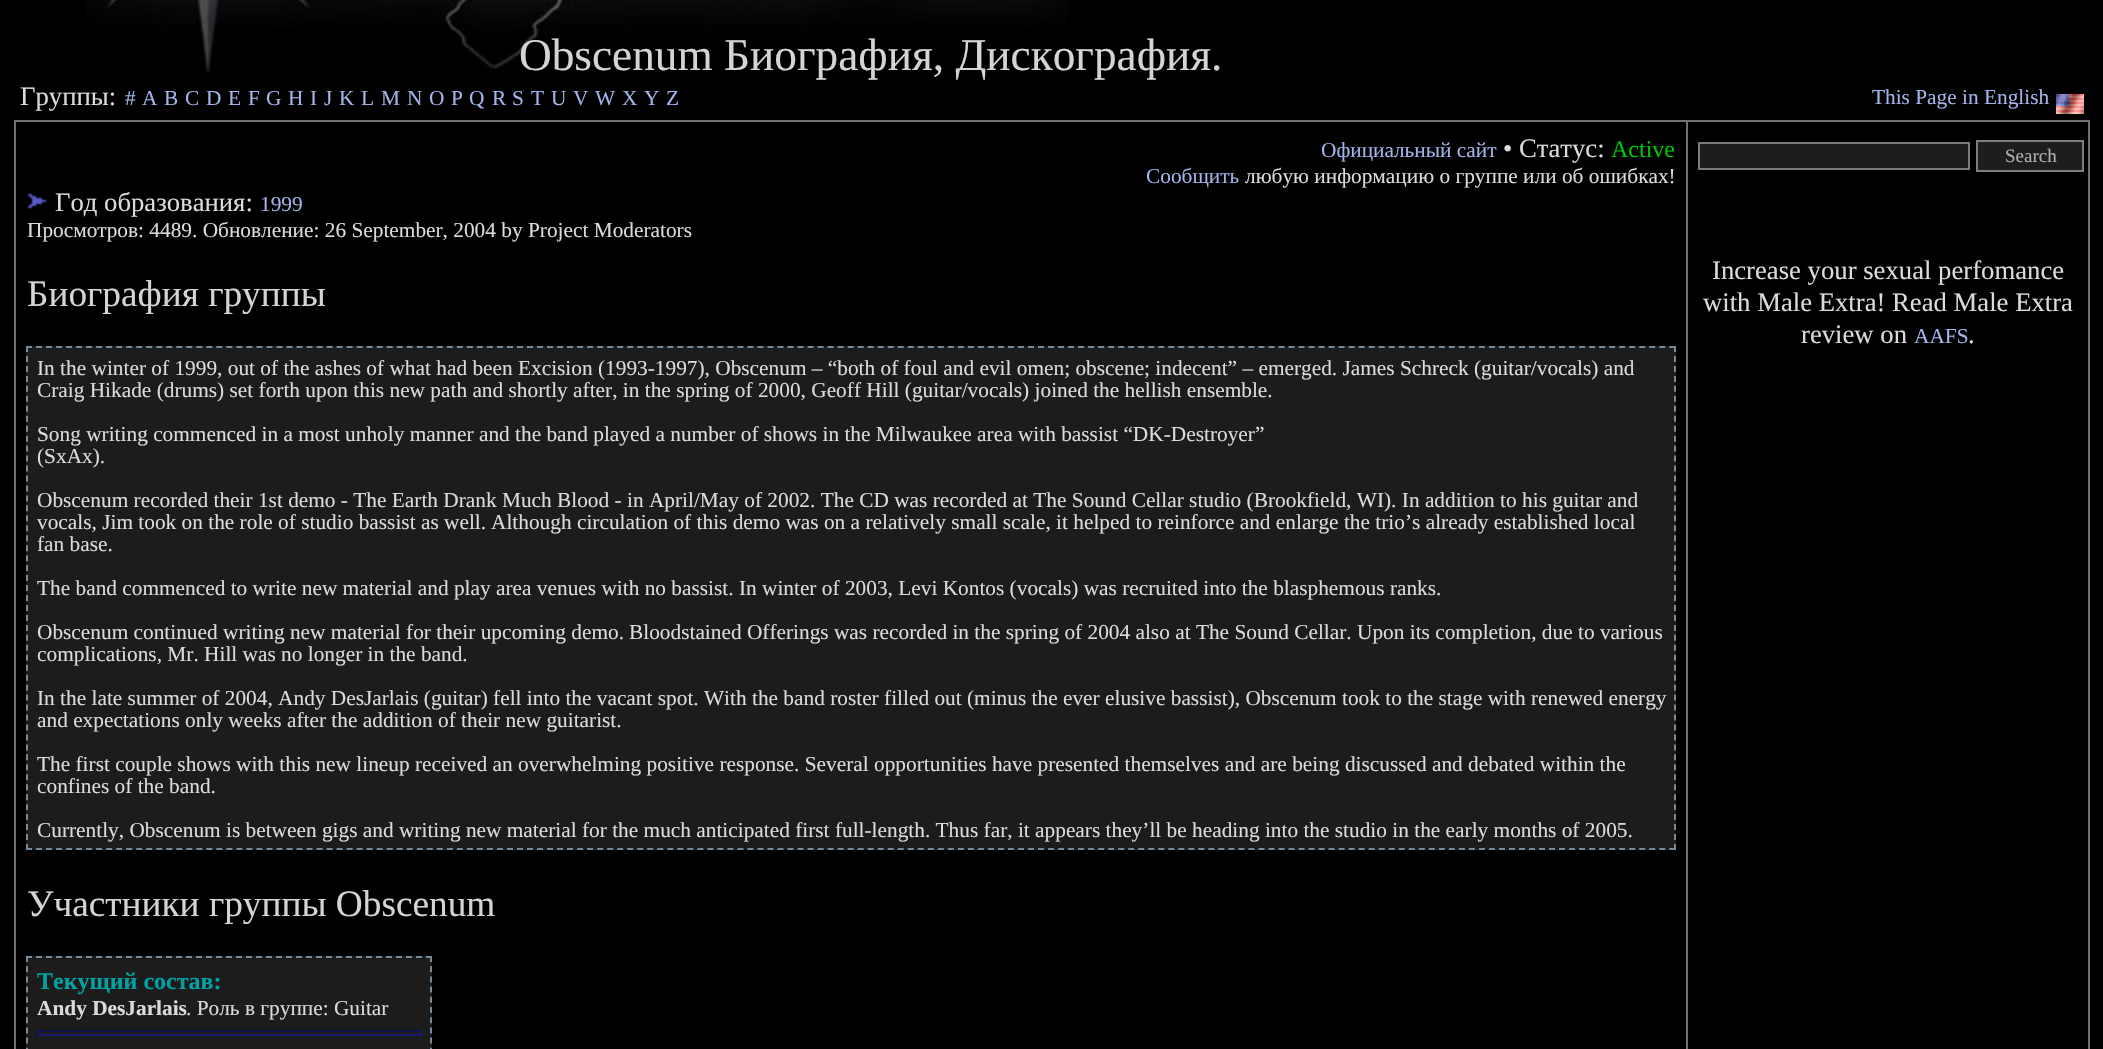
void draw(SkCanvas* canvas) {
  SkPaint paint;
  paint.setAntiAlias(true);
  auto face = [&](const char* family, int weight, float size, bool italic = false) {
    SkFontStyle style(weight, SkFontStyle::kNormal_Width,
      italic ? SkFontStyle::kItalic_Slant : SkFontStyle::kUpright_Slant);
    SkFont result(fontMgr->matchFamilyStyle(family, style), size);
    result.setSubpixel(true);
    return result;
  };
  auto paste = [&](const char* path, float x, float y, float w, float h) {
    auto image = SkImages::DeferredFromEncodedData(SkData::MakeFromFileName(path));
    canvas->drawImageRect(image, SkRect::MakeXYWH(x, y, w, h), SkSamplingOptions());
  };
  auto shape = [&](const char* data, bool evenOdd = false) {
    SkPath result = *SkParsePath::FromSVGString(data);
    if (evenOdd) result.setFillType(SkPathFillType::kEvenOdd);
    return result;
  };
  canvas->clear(0xff000000);
  paste("img/1.png", 86, 0, 983, 73);
  paste("img/2.png", 2056, 94, 28, 20);
  paint.setStroke(true);
  paint.setStrokeWidth(2);
  paint.setColor(0xff727272);
  canvas->drawRect(SkRect::MakeXYWH(15, 121, 2074, 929), paint);
  paint.setStroke(false);
  canvas->drawRect(SkRect::MakeXYWH(1686, 122, 2, 927), paint);
  paste("img/3.png", 27, 193, 20, 16);
  paint.setColor(0xff1c1c1c);
  canvas->drawRect(SkRect::MakeXYWH(26, 346, 1650, 504), paint);
  paint.setStroke(true);
  paint.setColor(0xff778a99);
  paint.setPathEffect(SkDashPathEffect::Make({{6, 4.02f}}, 0));
  canvas->drawPath(shape("M26 347H1676"), paint);
  paint.setPathEffect(nullptr);
  paint.setPathEffect(SkDashPathEffect::Make({{6, 3.96f}}, 0));
  canvas->drawPath(shape("M1675 346V850"), paint);
  paint.setPathEffect(nullptr);
  paint.setPathEffect(SkDashPathEffect::Make({{6, 4.02f}}, 0));
  canvas->drawPath(shape("M26 849H1676"), paint);
  paint.setPathEffect(nullptr);
  paint.setPathEffect(SkDashPathEffect::Make({{6, 3.96f}}, 0));
  canvas->drawPath(shape("M27 346V850"), paint);
  paint.setPathEffect(nullptr);
  paint.setStroke(false);
  paint.setColor(0xff1c1c1c);
  canvas->drawRect(SkRect::MakeXYWH(26, 956, 406, 93), paint);
  paint.setStroke(true);
  paint.setColor(0xff778a99);
  paint.setPathEffect(SkDashPathEffect::Make({{6, 4}}, 0));
  canvas->drawPath(shape("M26 957H432"), paint);
  paint.setPathEffect(nullptr);
  paint.setPathEffect(SkDashPathEffect::Make({{6, 4.2f}}, 0));
  canvas->drawPath(shape("M431 956V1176"), paint);
  paint.setPathEffect(nullptr);
  paint.setPathEffect(SkDashPathEffect::Make({{6, 4.2f}}, 0));
  canvas->drawPath(shape("M27 956V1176"), paint);
  paint.setPathEffect(nullptr);
  paint.setStroke(false);
  {
    const struct { float x, y, w, h; SkColor color; } items[] = {
      {36, 1030, 386, 2, 0xff11114b},
      {420, 1030, 2, 6, 0xff191970},
      {36, 1034, 386, 2, 0xff191970},
      {36, 1030, 2, 6, 0xff11114b},
    };
    for (auto [x, y, w, h, color] : items) {
      paint.setColor(color);
      canvas->drawRect(SkRect::MakeXYWH(x, y, w, h), paint);
    }
  }
  paint.setColor(0xff1d1d1d);
  canvas->drawRect(SkRect::MakeXYWH(1699, 143, 270, 26), paint);
  paint.setStroke(true);
  paint.setColor(0xff7c7c7c);
  canvas->drawRect(SkRect::MakeXYWH(1699, 143, 270, 26), paint);
  paint.setStroke(false);
  paint.setColor(0xff1d1d1d);
  canvas->drawRect(SkRect::MakeXYWH(1977, 141, 106, 30), paint);
  paint.setStroke(true);
  paint.setColor(0xff7c7c7c);
  canvas->drawRect(SkRect::MakeXYWH(1977, 141, 106, 30), paint);
  auto f0 = face("Liberation Serif", 400, 45.3f);
  paint.setStroke(false);
  paint.setColor(0xffd4d4d4);
  canvas->drawString("Obscenum Биография, Дискография.", 519, 70, f0, paint);
  auto f1 = face("Liberation Serif", 400, 26.7f);
  paint.setColor(0xffdbdbdb);
  canvas->drawString("Группы:", 20, 105, f1, paint);
  auto f2 = face("Liberation Serif", 400, 21.33f);
  paint.setColor(0xffa3b4ea);
  {
    const struct { const char* s; float x, y; } items[] = {
      {"#", 125, 105},
      {"A", 142, 105},
      {"B", 164, 105},
      {"C", 185, 105},
      {"D", 206, 105},
      {"E", 228, 105},
      {"F", 248, 105},
      {"G", 266, 105},
      {"H", 288, 105},
      {"I", 310, 105},
      {"J", 324, 105},
      {"K", 339, 105},
      {"L", 361, 105},
      {"M", 381, 105},
      {"N", 407, 105},
      {"O", 429, 105},
      {"P", 451, 105},
      {"Q", 469, 105},
      {"R", 492, 105},
      {"S", 512, 105},
      {"T", 531, 105},
      {"U", 551, 105},
      {"V", 573, 105},
      {"W", 595, 105},
      {"X", 622, 105},
      {"Y", 644, 105},
      {"Z", 666, 105},
      {"This Page in English", 1872, 104},
      {"Официальный сайт", 1321, 157},
    };
    for (auto [s, x, y] : items) {
      canvas->drawString(s, x, y, f2, paint);
    }
  }
  paint.setColor(0xffdbdbdb);
  canvas->drawString("• Статус:", 1503, 157, f1, paint);
  auto f3 = face("Liberation Serif", 400, 24);
  paint.setColor(0xff00c602);
  canvas->drawString("Active", 1611, 157, f3, paint);
  paint.setColor(0xffa3b4ea);
  canvas->drawString("Сообщить", 1146, 183, f2, paint);
  paint.setColor(0xffdbdbdb);
  canvas->drawString("любую информацию о группе или об ошибках!", 1245, 183, f2, paint);
  canvas->drawString("Год образования:", 55, 211, f1, paint);
  paint.setColor(0xffa3b4ea);
  canvas->drawString("1999", 260, 211, f2, paint);
  paint.setColor(0xffdbdbdb);
  canvas->drawString("Просмотров: 4489. Обновление: 26 September, 2004 by Project Moderators", 27, 237, f2, paint);
  auto f4 = face("Liberation Serif", 400, 37.3f);
  paint.setColor(0xffd4d4d4);
  canvas->drawString("Биография группы", 27, 306, f4, paint);
  paint.setColor(0xffdbdbdb);
  {
    const struct { const char* s; float x, y; } items[] = {
      {"In the winter of 1999, out of the ashes of what had been Excision (1993-1997), Obscenum – “both of foul and evil omen; obscene; indecent” – emerged. James Schreck (guitar/vocals) and", 37, 375},
      {"Craig Hikade (drums) set forth upon this new path and shortly after, in the spring of 2000, Geoff Hill (guitar/vocals) joined the hellish ensemble.", 37, 397},
      {"Song writing commenced in a most unholy manner and the band played a number of shows in the Milwaukee area with bassist “DK-Destroyer”", 37, 441},
      {"(SxAx).", 37, 463},
      {"Obscenum recorded their 1st demo - The Earth Drank Much Blood - in April/May of 2002. The CD was recorded at The Sound Cellar studio (Brookfield, WI). In addition to his guitar and", 37, 507},
      {"vocals, Jim took on the role of studio bassist as well.", 37, 529},
      {"Although circulation of this demo was on a relatively small scale, it helped to reinforce and enlarge the trio’s already established local", 491, 529},
      {"fan base.", 37, 551},
      {"The band commenced to write new material and play area venues with no bassist. In winter of 2003, Levi Kontos (vocals) was recruited into the blasphemous ranks.", 37, 595},
      {"Obscenum continued writing new material for their upcoming demo.", 37, 639},
      {"Bloodstained Offerings was recorded in the spring of 2004 also at The Sound Cellar. Upon its completion, due to various", 629, 639},
      {"complications, Mr. Hill was no longer in the band.", 37, 661},
      {"In the late summer of 2004, Andy DesJarlais (guitar) fell into the vacant spot. With the band roster filled out (minus the ever elusive bassist), Obscenum took to the stage with renewed energy", 37, 705},
      {"and expectations only weeks after the addition of their new guitarist.", 37, 727},
      {"The first couple shows with this new lineup received an overwhelming positive response. Several opportunities have presented themselves and are being discussed and debated within the", 37, 771},
      {"confines of the band.", 37, 793},
      {"Currently, Obscenum is between gigs and writing new material for the much anticipated first full-length. Thus far, it appears they’ll be heading into the studio in the early months of 2005.", 37, 837},
    };
    for (auto [s, x, y] : items) {
      canvas->drawString(s, x, y, f2, paint);
    }
  }
  paint.setColor(0xffd4d4d4);
  canvas->drawString("Участники группы Obscenum", 27, 916, f4, paint);
  auto f5 = face("Liberation Serif", 700, 24);
  paint.setColor(0xff00a2a4);
  canvas->drawString("Текущий состав:", 37, 989, f5, paint);
  auto f6 = face("Liberation Serif", 700, 21.33f);
  paint.setColor(0xffdbdbdb);
  canvas->drawString("Andy DesJarlais", 37, 1015, f6, paint);
  canvas->drawString(". Роль в группе: Guitar", 186, 1015, f2, paint);
  auto f7 = face("Liberation Serif", 400, 19);
  paint.setColor(0xffafafaf);
  canvas->drawString("Search", 2005, 162, f7, paint);
  paint.setColor(0xffdbdbdb);
  {
    const struct { const char* s; float x, y; } items[] = {
      {"Increase your sexual perfomance", 1712, 279},
      {"with Male Extra! Read Male Extra", 1703, 311},
      {"review on", 1801, 343},
    };
    for (auto [s, x, y] : items) {
      canvas->drawString(s, x, y, f1, paint);
    }
  }
  paint.setColor(0xffa3b4ea);
  canvas->drawString("AAFS", 1914, 343, f2, paint);
  paint.setColor(0xffdbdbdb);
  canvas->drawString(".", 1968, 343, f1, paint);
}
